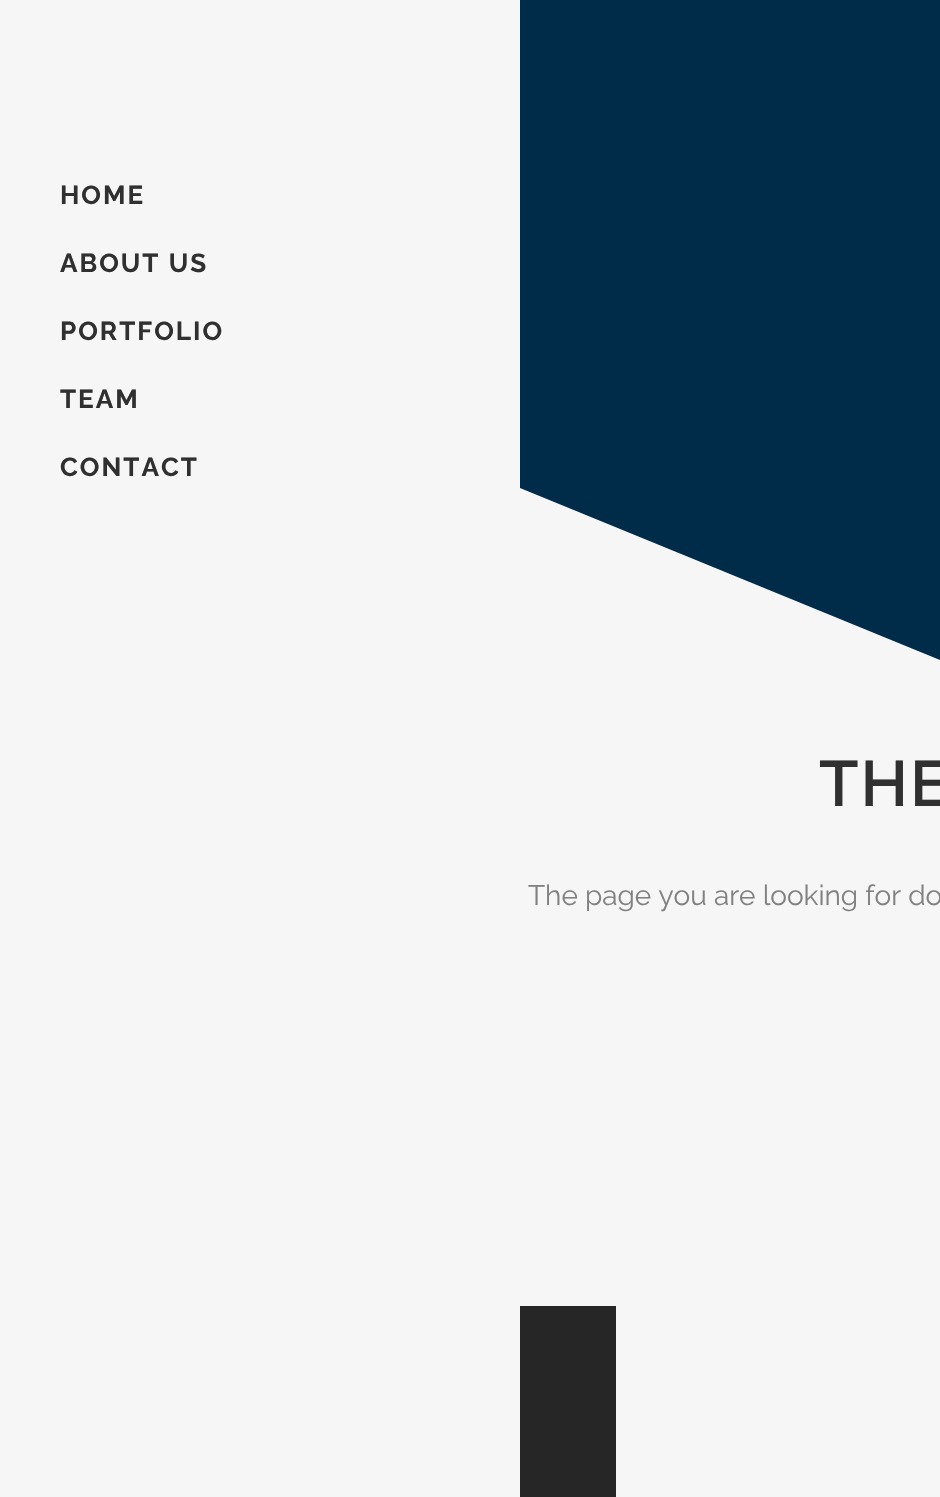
void draw(SkCanvas* canvas) {
  SkPaint paint;
  paint.setAntiAlias(true);
  auto face = [&](const char* family, int weight, float size, bool italic = false) {
    SkFontStyle style(weight, SkFontStyle::kNormal_Width,
      italic ? SkFontStyle::kItalic_Slant : SkFontStyle::kUpright_Slant);
    SkFont result(fontMgr->matchFamilyStyle(family, style), size);
    result.setSubpixel(true);
    return result;
  };
  auto writeSpaced = [&](const char* s, float x, float y, const SkFont& font, const SkPaint& ink, float letter, float word) {
    std::vector<SkGlyphID> glyphs(font.countText(s, strlen(s), SkTextEncoding::kUTF8));
    std::vector<float> xs(glyphs.size());
    font.textToGlyphs(s, strlen(s), SkTextEncoding::kUTF8, glyphs);
    font.getXPos(glyphs, xs, x);
    float extra = 0;
    for (size_t i = 0; i < glyphs.size(); i++) {
      xs[i] += extra;
      extra += letter + word * (glyphs[i] == font.unicharToGlyph(' '));
    }
    canvas->drawTextBlob(SkTextBlob::MakeFromPosHGlyphs(glyphs, xs, y, font), 0, 0, ink);
  };
  auto shape = [&](const char* data, bool evenOdd = false) {
    SkPath result = *SkParsePath::FromSVGString(data);
    if (evenOdd) result.setFillType(SkPathFillType::kEvenOdd);
    return result;
  };
  canvas->clear(0xfff6f6f6);
  paint.setColor(0xff002b49);
  canvas->drawRect(SkRect::MakeXYWH(520, 0, 420, 660), paint);
  paint.setColor(0xfff6f6f6);
  canvas->drawPath(shape("M520 488V660H940Z"), paint);
  paint.setColor(0xff262626);
  canvas->drawRect(SkRect::MakeXYWH(520, 1306, 96, 191), paint);
  auto f0 = face("Raleway", 700, 26);
  paint.setColor(0xff303030);
  {
    const struct { const char* s; float x, y; } items[] = {
      {"HOME", 60, 204},
      {"ABOUT US", 60, 272},
      {"PORTFOLIO", 60, 340},
      {"TEAM", 60, 408},
      {"CONTACT", 60, 476},
    };
    for (auto [s, x, y] : items) {
      writeSpaced(s, x, y, f0, paint, 2, 0);
    }
  }
  auto f1 = face("Raleway", 600, 64);
  writeSpaced("THE", 819, 806, f1, paint, 2, 0);
  auto f2 = face("Raleway", 400, 28);
  paint.setColor(0xff818181);
  canvas->drawString("The page you are looking for do", 528, 905, f2, paint);
}
